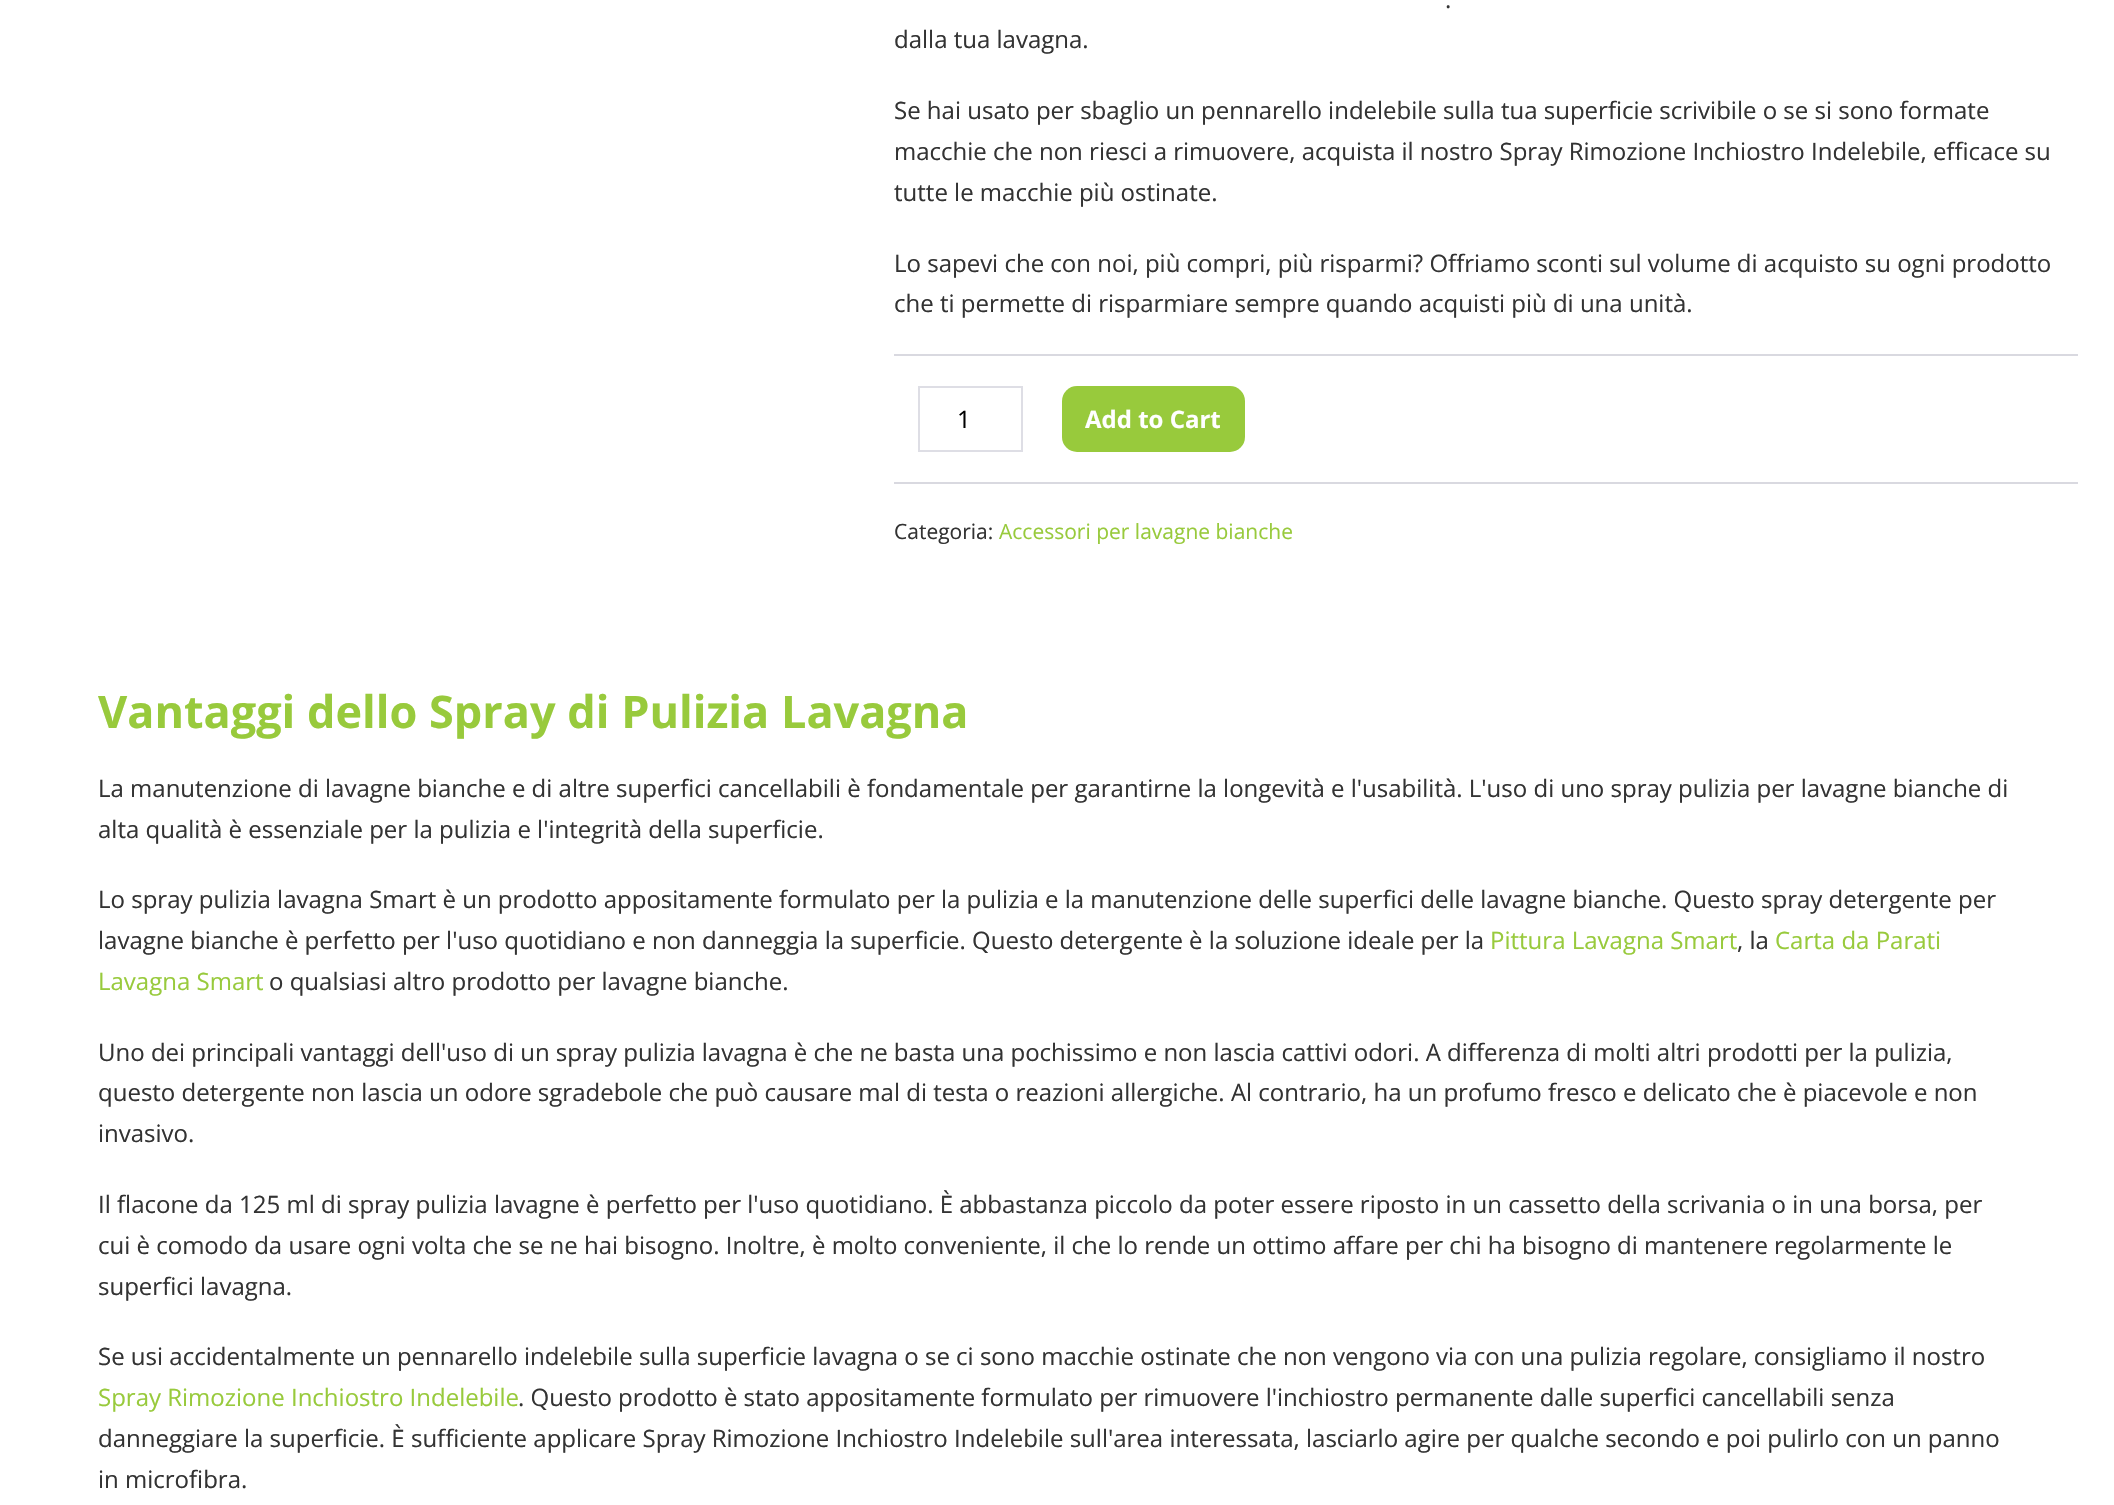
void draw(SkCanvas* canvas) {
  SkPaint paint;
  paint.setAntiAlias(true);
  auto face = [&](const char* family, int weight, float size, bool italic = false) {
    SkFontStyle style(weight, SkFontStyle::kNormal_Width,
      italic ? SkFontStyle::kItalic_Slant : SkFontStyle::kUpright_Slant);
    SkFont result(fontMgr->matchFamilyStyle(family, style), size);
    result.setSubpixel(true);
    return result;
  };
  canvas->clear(0xffffffff);
  paint.setColor(0xffd9d9e0);
  canvas->drawRect(SkRect::MakeXYWH(894, 354, 1184, 2), paint);
  canvas->drawRect(SkRect::MakeXYWH(894, 482, 1184, 2), paint);
  paint.setStroke(true);
  paint.setStrokeWidth(2);
  paint.setColor(0xffdedee5);
  canvas->drawRect(SkRect::MakeXYWH(919, 387, 103, 64), paint);
  paint.setStroke(false);
  paint.setColor(0xff98ca3c);
  canvas->drawRoundRect(SkRect::MakeXYWH(1062, 386, 183, 66), 15, 15, paint);
  auto f0 = face("Open Sans", 400, 24);
  paint.setColor(0xff333333);
  {
    const struct { const char* s; float x, y; } items[] = {
      {".", 1445, 8},
      {"dalla tua lavagna.", 894, 48},
      {"Se hai usato per sbaglio un pennarello indelebile sulla tua superficie scrivibile o se si sono formate", 894, 119},
      {"macchie che non riesci a rimuovere, acquista il nostro Spray Rimozione Inchiostro Indelebile, efficace su", 894, 160},
      {"tutte le macchie più ostinate.", 894, 201},
      {"Lo sapevi che con noi, più compri, più risparmi? Offriamo sconti sul volume di acquisto su ogni prodotto", 894, 272},
      {"che ti permette di risparmiare sempre quando acquisti più di una unità.", 894, 312},
    };
    for (auto [s, x, y] : items) {
      canvas->drawString(s, x, y, f0, paint);
    }
  }
  paint.setColor(0xff000000);
  canvas->drawString("1", 957, 428, f0, paint);
  auto f1 = face("Open Sans", 700, 24);
  paint.setColor(0xffffffff);
  canvas->drawString("Add to Cart", 1085, 428, f1, paint);
  auto f2 = face("Open Sans", 400, 21);
  paint.setColor(0xff333333);
  canvas->drawString("Categoria:", 894, 539, f2, paint);
  paint.setColor(0xff98ca3c);
  canvas->drawString("Accessori per lavagne bianche", 999, 539, f2, paint);
  auto f3 = face("Open Sans", 700, 45);
  canvas->drawString("Vantaggi dello Spray di Pulizia Lavagna", 98, 728, f3, paint);
  paint.setColor(0xff333333);
  {
    const struct { const char* s; float x, y; } items[] = {
      {"La manutenzione di lavagne bianche e di altre superfici cancellabili è fondamentale per garantirne la longevità e l'usabilità. L'uso di uno spray pulizia per lavagne bianche di", 98, 797},
      {"alta qualità è essenziale per la pulizia e l'integrità della superficie.", 98, 838},
      {"Lo spray pulizia lavagna Smart è un prodotto appositamente formulato per la pulizia e la manutenzione delle superfici delle lavagne bianche. Questo spray detergente per", 98, 908},
      {"lavagne bianche è perfetto per l'uso quotidiano e non danneggia la superficie. Questo detergente è la soluzione ideale per la", 98, 949},
    };
    for (auto [s, x, y] : items) {
      canvas->drawString(s, x, y, f0, paint);
    }
  }
  paint.setColor(0xff98ca3c);
  canvas->drawString("Pittura Lavagna Smart", 1490, 949, f0, paint);
  paint.setColor(0xff333333);
  canvas->drawString(", la", 1737, 949, f0, paint);
  paint.setColor(0xff98ca3c);
  canvas->drawString("Carta da Parati", 1775, 949, f0, paint);
  canvas->drawString("Lavagna Smart", 98, 990, f0, paint);
  paint.setColor(0xff333333);
  {
    const struct { const char* s; float x, y; } items[] = {
      {"o qualsiasi altro prodotto per lavagne bianche.", 269, 990},
      {"Uno dei principali vantaggi dell'uso di un spray pulizia lavagna è che ne basta una pochissimo e non lascia cattivi odori. A differenza di molti altri prodotti per la pulizia,", 98, 1061},
      {"questo detergente non lascia un odore sgradebole che può causare mal di testa o reazioni allergiche. Al contrario, ha un profumo fresco e delicato che è piacevole e non", 98, 1101},
      {"invasivo.", 98, 1142},
      {"Il flacone da 125 ml di spray pulizia lavagne è perfetto per l'uso quotidiano. È abbastanza piccolo da poter essere riposto in un cassetto della scrivania o in una borsa, per", 98, 1213},
      {"cui è comodo da usare ogni volta che se ne hai bisogno. Inoltre, è molto conveniente, il che lo rende un ottimo affare per chi ha bisogno di mantenere regolarmente le", 98, 1254},
      {"superfici lavagna.", 98, 1295},
      {"Se usi accidentalmente un pennarello indelebile sulla superficie lavagna o se ci sono macchie ostinate che non vengono via con una pulizia regolare, consigliamo il nostro", 98, 1365},
    };
    for (auto [s, x, y] : items) {
      canvas->drawString(s, x, y, f0, paint);
    }
  }
  paint.setColor(0xff98ca3c);
  canvas->drawString("Spray Rimozione Inchiostro Indelebile", 98, 1406, f0, paint);
  paint.setColor(0xff333333);
  {
    const struct { const char* s; float x, y; } items[] = {
      {". Questo prodotto è stato appositamente formulato per rimuovere l'inchiostro permanente dalle superfici cancellabili senza", 518, 1406},
      {"danneggiare la superficie. È sufficiente applicare Spray Rimozione Inchiostro Indelebile sull'area interessata, lasciarlo agire per qualche secondo e poi pulirlo con un panno", 98, 1447},
      {"in microfibra.", 98, 1488},
    };
    for (auto [s, x, y] : items) {
      canvas->drawString(s, x, y, f0, paint);
    }
  }
}
